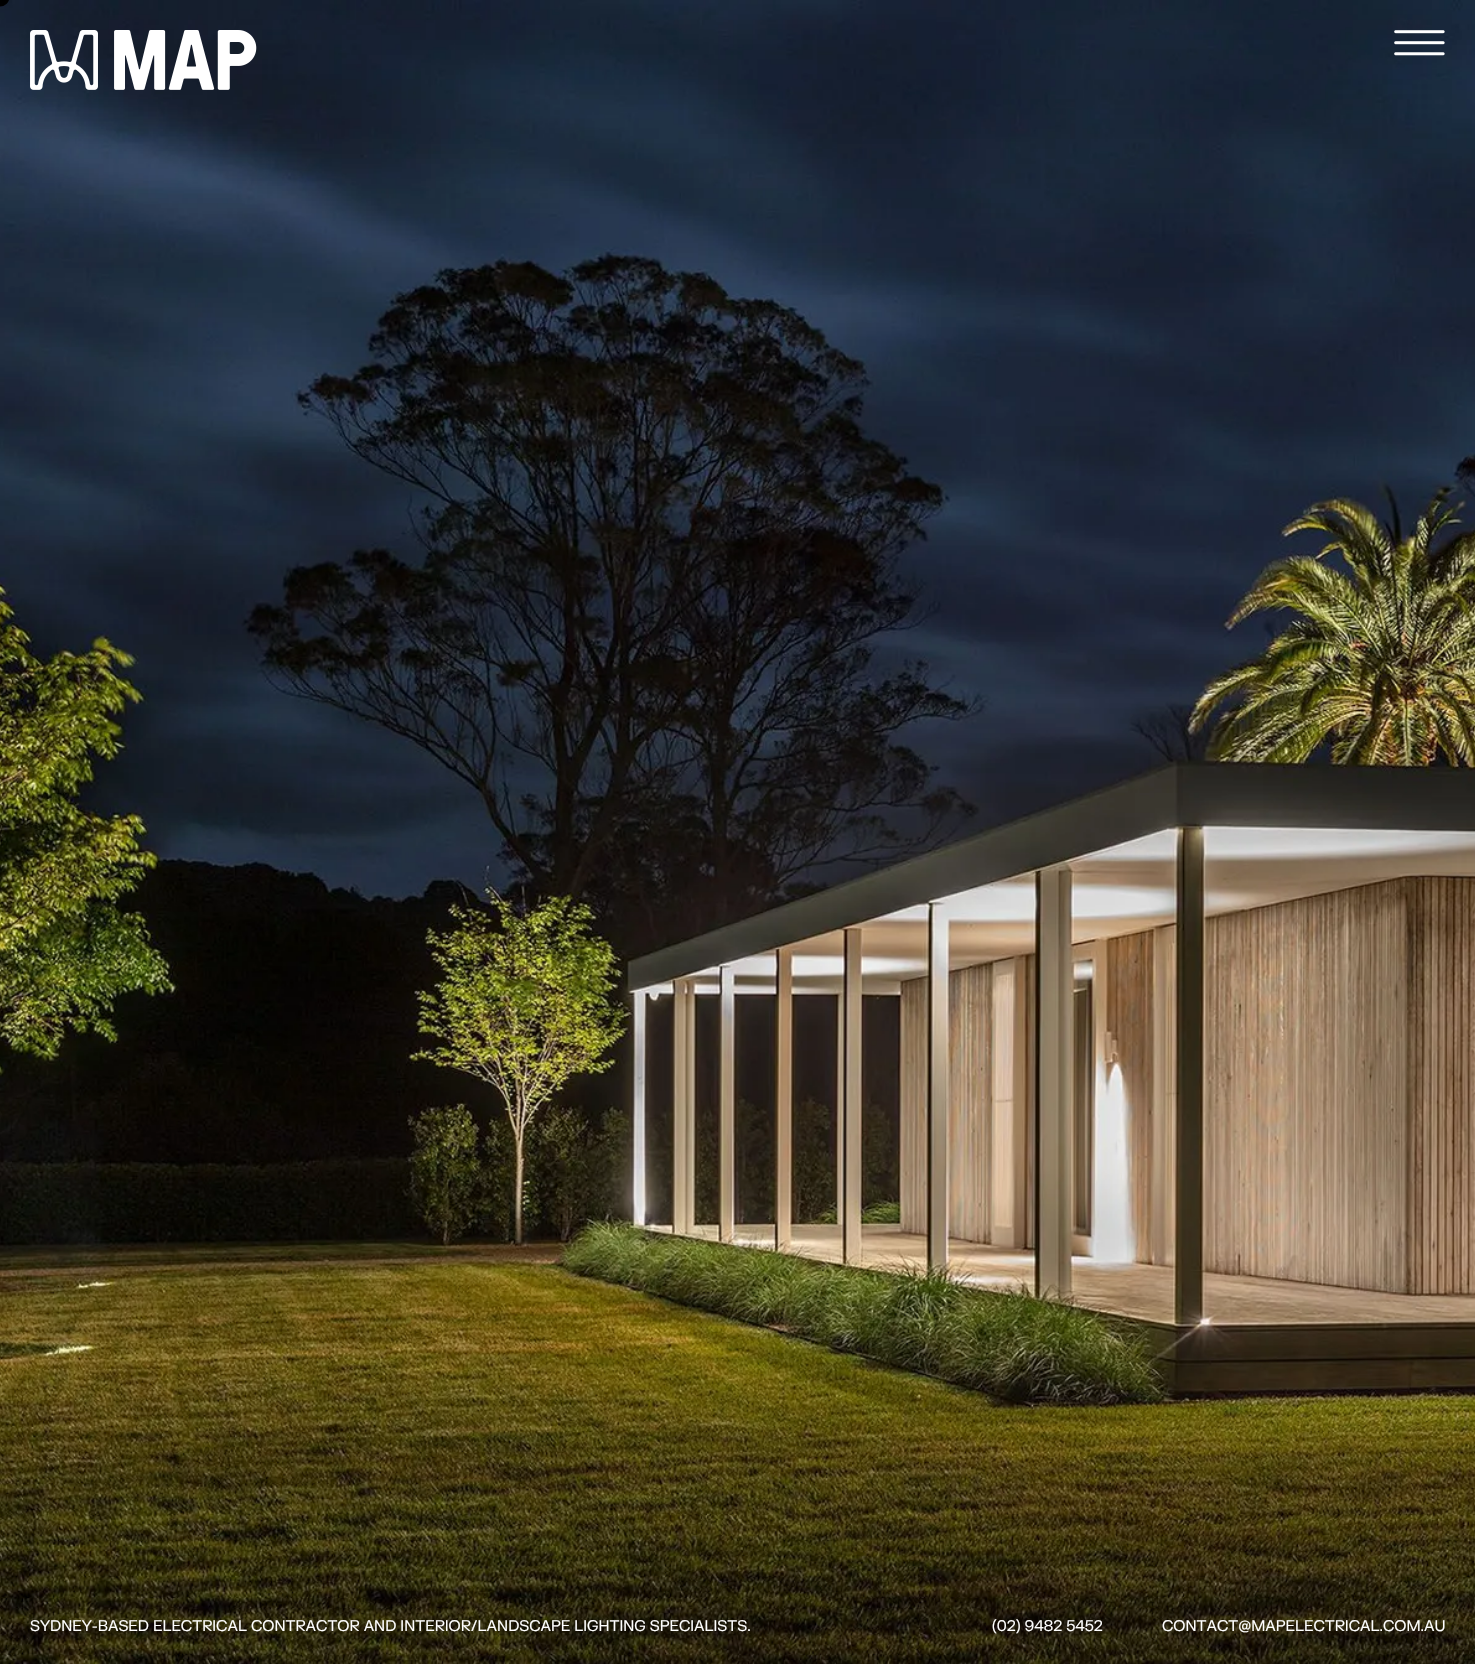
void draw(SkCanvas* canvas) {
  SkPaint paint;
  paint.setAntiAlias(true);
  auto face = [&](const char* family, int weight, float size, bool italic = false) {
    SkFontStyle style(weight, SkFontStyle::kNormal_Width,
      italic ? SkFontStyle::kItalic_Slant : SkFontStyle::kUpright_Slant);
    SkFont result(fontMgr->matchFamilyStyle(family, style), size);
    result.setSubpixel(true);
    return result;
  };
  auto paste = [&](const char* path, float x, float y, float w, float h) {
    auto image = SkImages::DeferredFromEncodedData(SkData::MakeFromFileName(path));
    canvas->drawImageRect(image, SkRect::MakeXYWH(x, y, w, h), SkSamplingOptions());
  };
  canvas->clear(0xffffffff);
  paste("img/3.png", 0, 0, 1475, 1664);
  paint.setColor(0xff000000);
  canvas->drawCircle(0, -3, 9.5f, paint);
  paste("img/1.png", 30, 30, 227, 60);
  paste("img/2.png", 1394, 30, 51, 26);
  auto f0 = face("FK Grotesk", 400, 15);
  paint.setColor(0xffffffff);
  {
    const struct { const char* s; float x, y; } items[] = {
      {"SYDNEY-BASED ELECTRICAL CONTRACTOR AND INTERIOR/LANDSCAPE LIGHTING SPECIALISTS.", 30, 1631},
      {"(02) 9482 5452", 992, 1631},
      {"CONTACT@MAPELECTRICAL.COM.AU", 1162, 1631},
    };
    for (auto [s, x, y] : items) {
      canvas->drawString(s, x, y, f0, paint);
    }
  }
}
